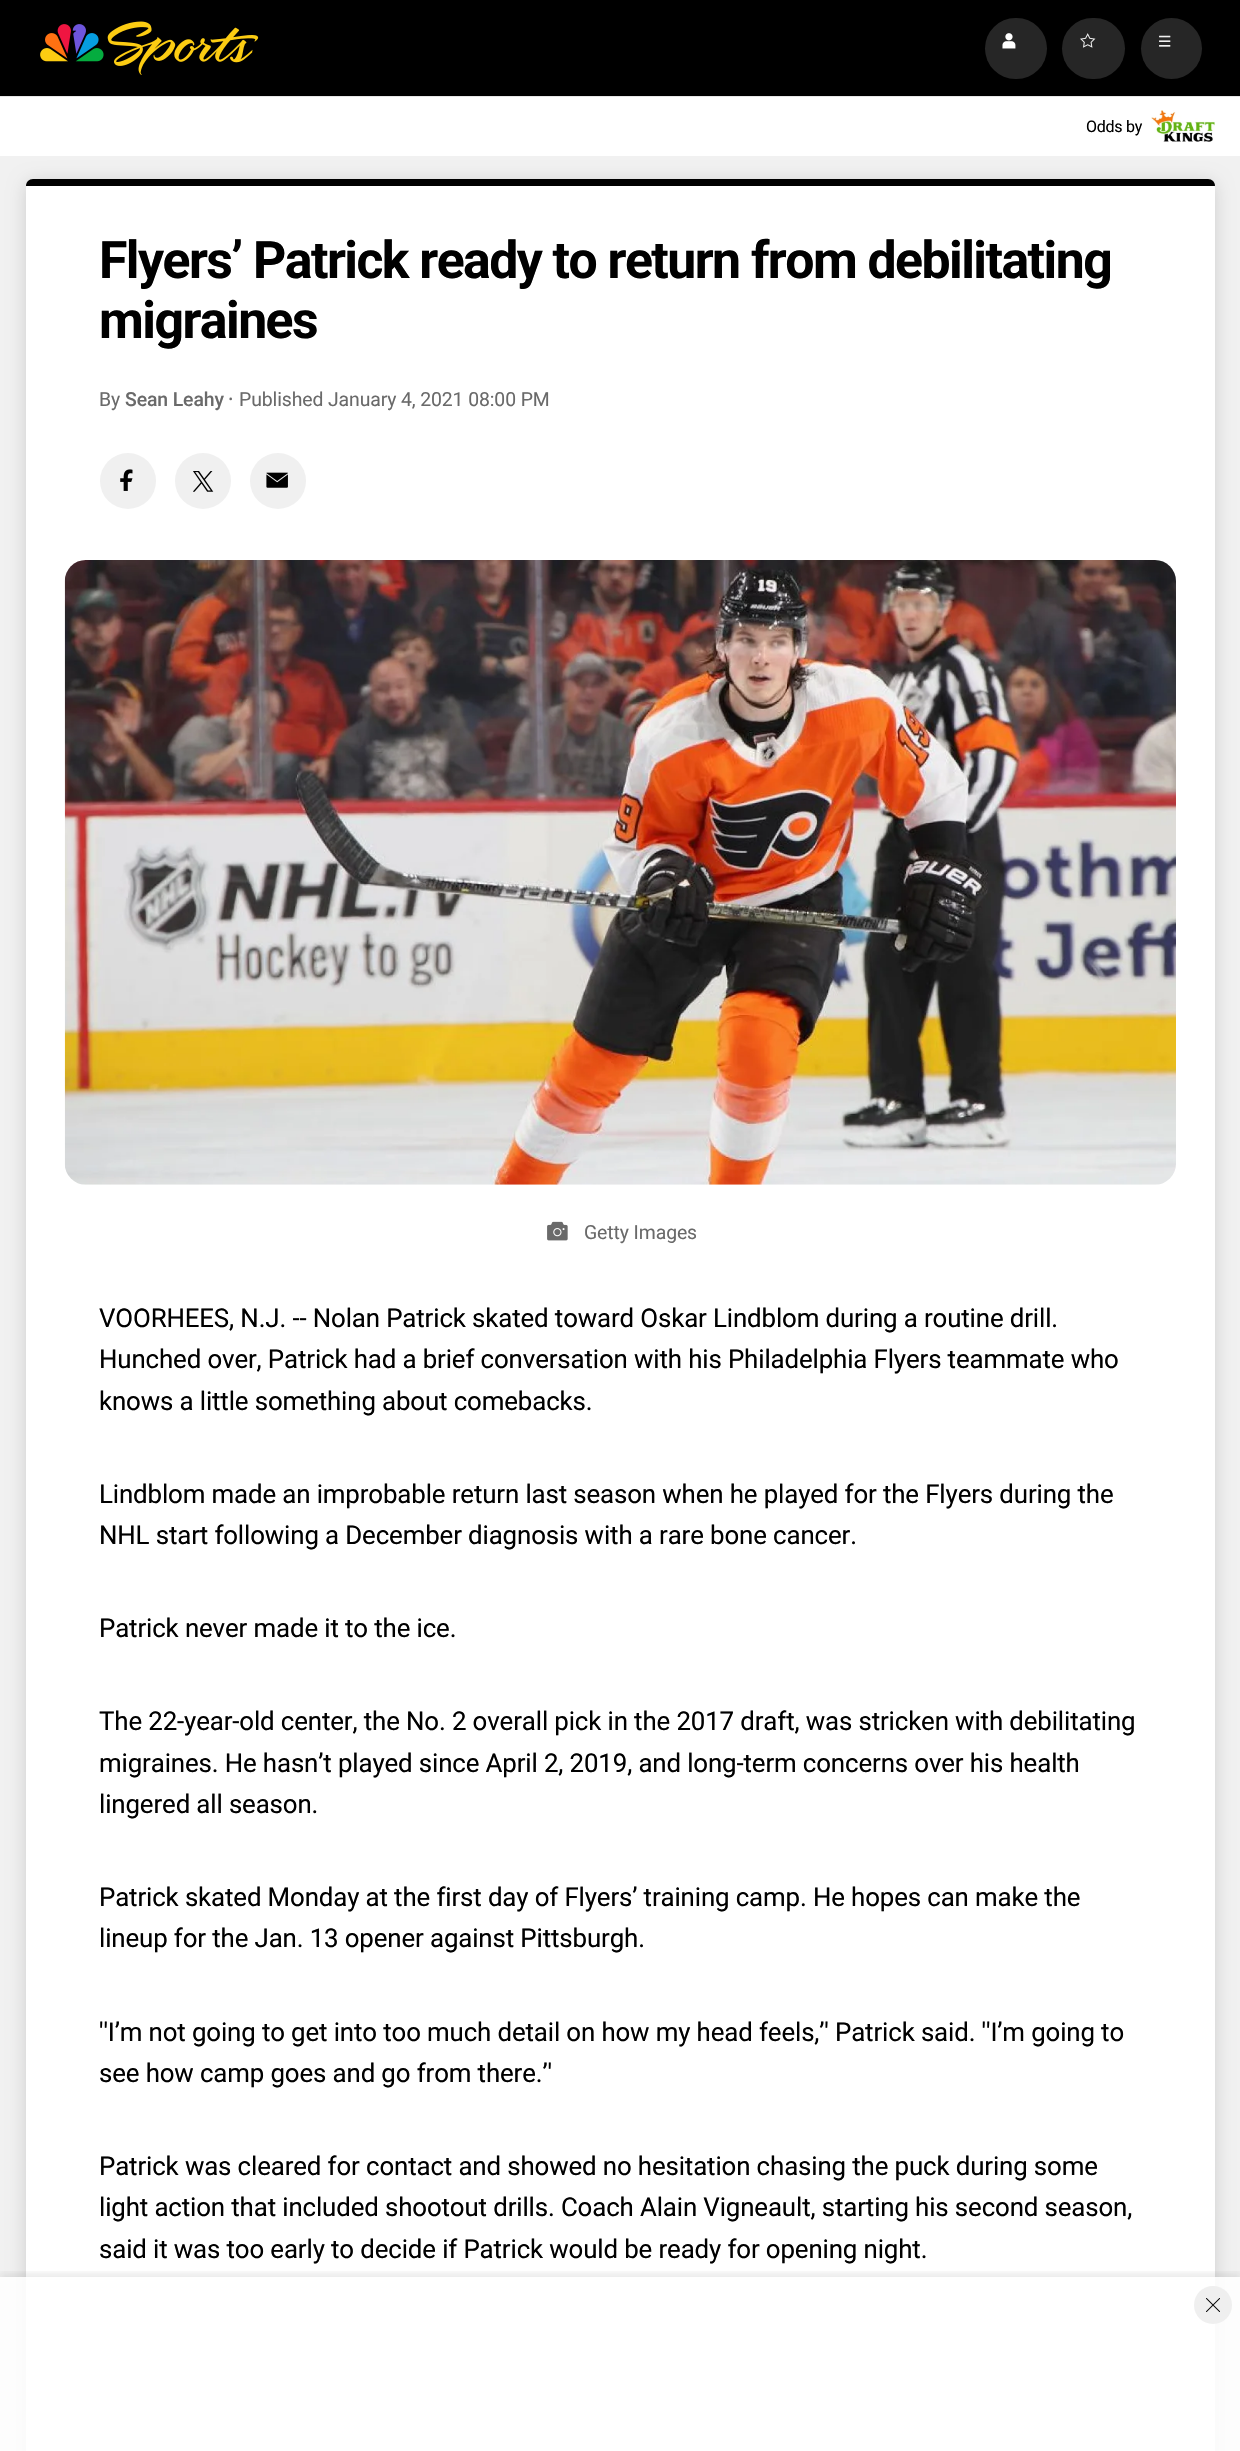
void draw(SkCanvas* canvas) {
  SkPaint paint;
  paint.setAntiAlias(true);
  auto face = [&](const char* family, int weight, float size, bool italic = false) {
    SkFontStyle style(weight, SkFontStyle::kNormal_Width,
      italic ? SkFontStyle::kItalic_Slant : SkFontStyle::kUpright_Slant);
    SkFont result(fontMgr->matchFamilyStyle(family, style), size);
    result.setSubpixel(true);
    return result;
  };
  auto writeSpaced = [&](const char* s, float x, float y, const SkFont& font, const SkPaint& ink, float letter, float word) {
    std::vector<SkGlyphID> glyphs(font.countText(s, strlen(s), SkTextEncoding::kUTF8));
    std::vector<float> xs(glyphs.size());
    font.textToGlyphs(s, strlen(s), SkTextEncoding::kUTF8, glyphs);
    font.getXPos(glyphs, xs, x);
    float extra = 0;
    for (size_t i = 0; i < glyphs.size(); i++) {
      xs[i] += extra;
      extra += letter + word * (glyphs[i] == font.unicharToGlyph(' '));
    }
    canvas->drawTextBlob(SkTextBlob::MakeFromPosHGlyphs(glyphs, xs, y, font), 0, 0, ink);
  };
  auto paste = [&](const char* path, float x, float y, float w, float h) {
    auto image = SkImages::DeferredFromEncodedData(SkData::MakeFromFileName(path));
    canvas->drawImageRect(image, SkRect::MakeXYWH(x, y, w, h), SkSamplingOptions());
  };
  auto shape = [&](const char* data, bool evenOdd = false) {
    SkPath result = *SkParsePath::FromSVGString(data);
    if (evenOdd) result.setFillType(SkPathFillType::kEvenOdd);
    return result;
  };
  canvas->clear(0xfff1f1f1);
  paint.setColor(0xff000000);
  canvas->drawRect(SkRect::MakeXYWH(0, 0, 1240, 96), paint);
  paste("img/1.png", 40, 21, 219, 54);
  paint.setColor(0xff262626);
  canvas->drawRoundRect(SkRect::MakeXYWH(985, 18, 62, 61), 30.5f, 30.5f, paint);
  paste("img/2.png", 1002, 33, 14, 16);
  canvas->drawRoundRect(SkRect::MakeXYWH(1062, 18, 63, 61), 30.5f, 30.5f, paint);
  paste("img/3.png", 1080, 33, 16, 15);
  canvas->drawCircle(1171.5f, 48.5f, 30.5f, paint);
  paste("img/4.png", 1159, 35, 12, 12);
  paint.setColor(0xffffffff);
  canvas->drawRect(SkRect::MakeXYWH(0, 97, 1240, 59), paint);
  paint.setColor(0xffe6e6e6);
  canvas->drawRect(SkRect::MakeXYWH(0, 96, 1240, 1), paint);
  paste("img/5.png", 1151, 110, 64, 32);
  paint.setColor(0x26000000);
  paint.setMaskFilter(SkMaskFilter::MakeBlur(kNormal_SkBlurStyle, 9));
  canvas->drawRoundRect(SkRect::MakeXYWH(26, 182, 1189, 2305), 9, 9, paint);
  paint.setMaskFilter(nullptr);
  paint.setColor(0xffffffff);
  canvas->drawRoundRect(SkRect::MakeXYWH(26, 179, 1189, 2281), 9, 9, paint);
  paint.setColor(0xff000000);
  canvas->drawPath(shape("M33 179H1208C1212 179 1215 182 1215 186H26C26 182 29 179 33 179Z"), paint);
  paint.setColor(0xff6a6a6a);
  canvas->drawCircle(230.7f, 398.9f, 1.3f, paint);
  paint.setColor(0xfff0f0f0);
  canvas->drawCircle(128, 481, 28, paint);
  paste("img/6.png", 120, 469, 13, 22);
  canvas->drawCircle(203, 481, 28, paint);
  paste("img/7.png", 193, 471, 21, 21);
  canvas->drawCircle(278, 481, 28, paint);
  paste("img/8.png", 266, 472, 22, 16);
  paste("img/9.png", 64, 560, 1112, 625);
  paste("img/10.png", 547, 1221, 21, 20);
  canvas->save();
  canvas->clipRect(SkRect::MakeXYWH(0, 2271, 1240, 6));
  paint.setColor(0x14000000);
  paint.setMaskFilter(SkMaskFilter::MakeBlur(kNormal_SkBlurStyle, 3.5f));
  canvas->drawRect(SkRect::MakeXYWH(0, 2273, 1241, 175), paint);
  paint.setMaskFilter(nullptr);
  canvas->restore();
  paint.setColor(0xd9ffffff);
  canvas->drawRect(SkRect::MakeXYWH(0, 2277, 1240, 174), paint);
  paint.setColor(0xffefefef);
  canvas->drawCircle(1213, 2305, 19, paint);
  paste("img/11.png", 1206, 2298, 14, 14);
  auto f0 = face("Roboto", 400, 16);
  paint.setColor(0xff000000);
  writeSpaced("Odds by", 1086, 132, f0, paint, -0.25f, 0);
  auto f1 = face("Roboto", 700, 51.75f);
  writeSpaced("Flyers’ Patrick ready to return from debilitating", 99, 278, f1, paint, -1.55f, 0);
  writeSpaced("migraines", 99, 338, f1, paint, -1.55f, 0);
  auto f2 = face("Roboto", 400, 19.4f);
  paint.setColor(0xff6a6a6a);
  writeSpaced("By", 99, 406, f2, paint, -0.1f, 0);
  auto f3 = face("Roboto", 500, 19.4f);
  writeSpaced("Sean Leahy", 125, 406, f3, paint, -0.1f, 0);
  writeSpaced("Published January 4, 2021 08:00 PM", 239, 406, f2, paint, -0.1f, 0);
  writeSpaced("Getty Images", 584, 1239, f2, paint, -0.1f, 0);
  auto f4 = face("Roboto", 400, 25.85f);
  paint.setColor(0xff000000);
  {
    const struct { const char* s; float x, y; } items[] = {
      {"VOORHEES, N.J. -- Nolan Patrick skated toward Oskar Lindblom during a routine drill.", 99, 1327},
      {"Hunched over, Patrick had a brief conversation with his Philadelphia Flyers teammate who", 99, 1368},
      {"knows a little something about comebacks.", 99, 1410},
      {"Lindblom made an improbable return last season when he played for the Flyers during the", 99, 1503},
      {"NHL start following a December diagnosis with a rare bone cancer.", 99, 1544},
      {"Patrick never made it to the ice.", 99, 1637},
      {"The 22-year-old center, the No. 2 overall pick in the 2017 draft, was stricken with debilitating", 99, 1730},
      {"migraines. He hasn’t played since April 2, 2019, and long-term concerns over his health", 99, 1772},
      {"lingered all season.", 99, 1813},
      {"Patrick skated Monday at the first day of Flyers’ training camp. He hopes can make the", 99, 1906},
      {"lineup for the Jan. 13 opener against Pittsburgh.", 99, 1947},
      {"''I’m not going to get into too much detail on how my head feels,’' Patrick said. ''I’m going to", 99, 2041},
      {"see how camp goes and go from there.’'", 99, 2082},
      {"Patrick was cleared for contact and showed no hesitation chasing the puck during some", 99, 2175},
      {"light action that included shootout drills. Coach Alain Vigneault, starting his second season,", 99, 2216},
      {"said it was too early to decide if Patrick would be ready for opening night.", 99, 2258},
    };
    for (auto [s, x, y] : items) {
      writeSpaced(s, x, y, f4, paint, -0.13f, 0);
    }
  }
}
